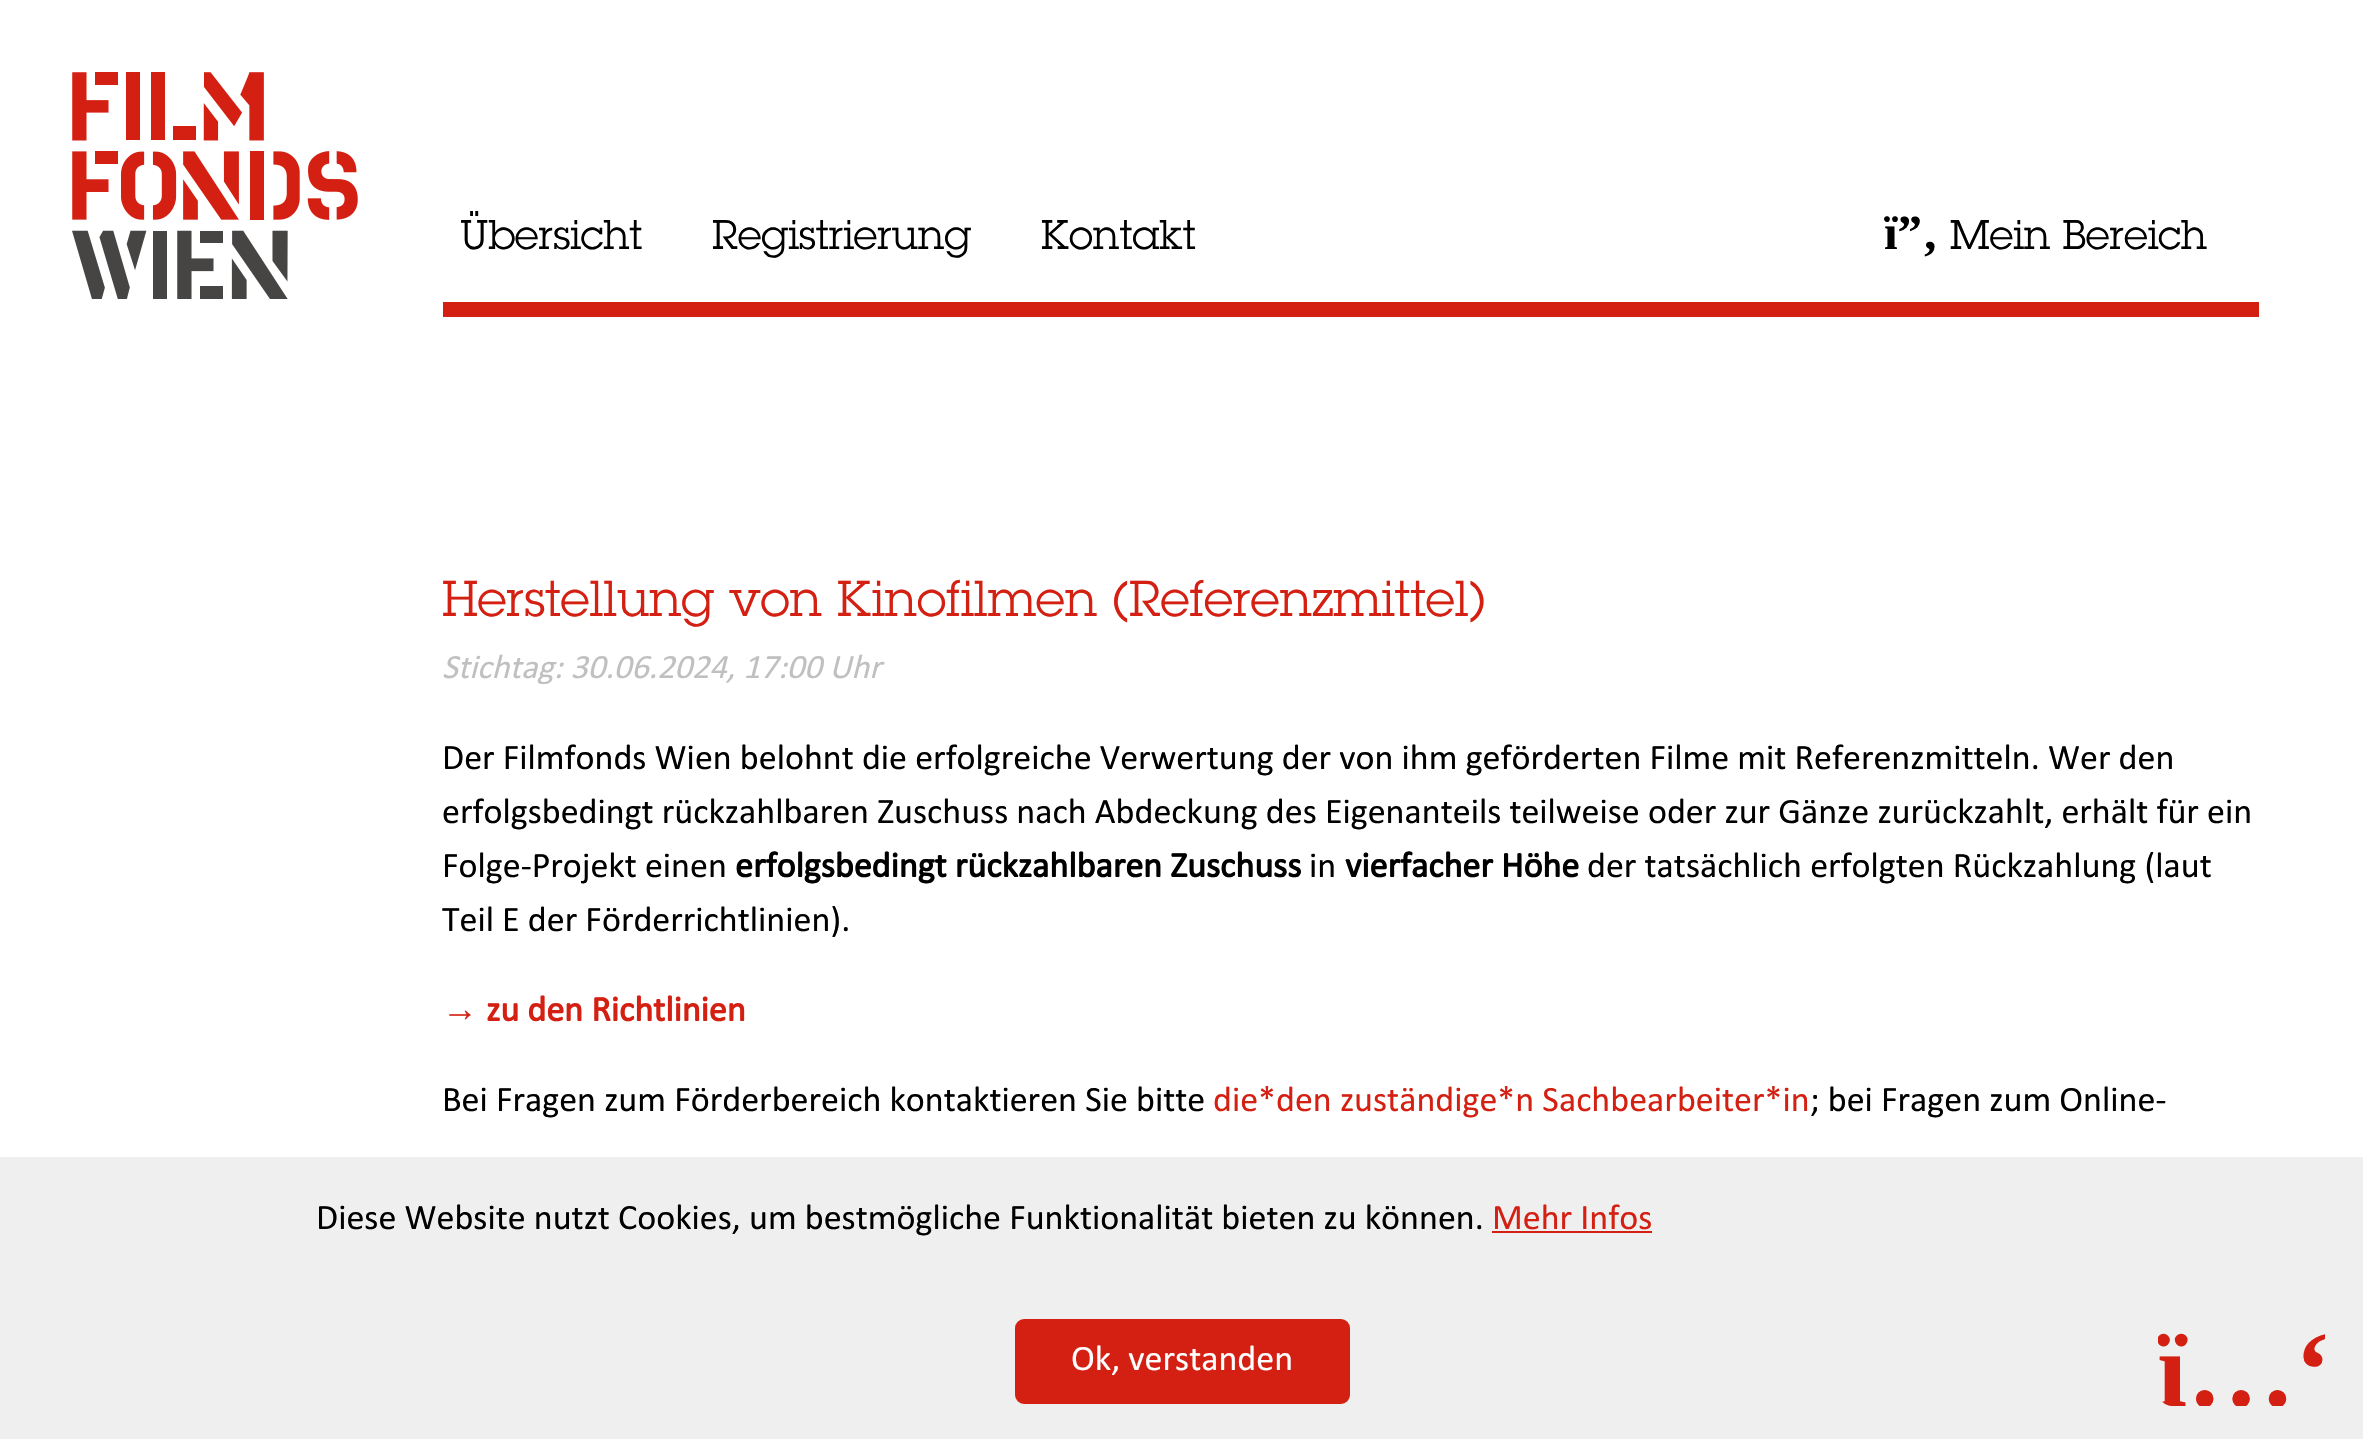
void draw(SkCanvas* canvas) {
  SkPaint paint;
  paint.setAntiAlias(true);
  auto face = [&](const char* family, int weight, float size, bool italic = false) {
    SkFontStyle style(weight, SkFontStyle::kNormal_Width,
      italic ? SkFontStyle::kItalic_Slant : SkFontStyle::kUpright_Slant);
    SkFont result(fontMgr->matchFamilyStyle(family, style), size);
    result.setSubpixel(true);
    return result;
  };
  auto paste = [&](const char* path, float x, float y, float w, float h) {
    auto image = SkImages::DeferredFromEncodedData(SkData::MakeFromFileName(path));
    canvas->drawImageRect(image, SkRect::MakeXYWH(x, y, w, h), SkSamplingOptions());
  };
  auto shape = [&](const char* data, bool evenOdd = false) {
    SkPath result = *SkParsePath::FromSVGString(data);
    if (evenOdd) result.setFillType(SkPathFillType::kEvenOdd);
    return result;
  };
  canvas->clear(0xffffffff);
  paste("img/1.png", 72, 72, 286, 227);
  {
    const struct { float x, y, w, h; SkColor color; } items[] = {
      {443, 302, 1816, 15, 0xffd42012},
      {0, 1157, 2363, 282, 0xffefefef},
      {1492, 1231, 160, 2, 0xffd42012},
    };
    for (auto [x, y, w, h, color] : items) {
      paint.setColor(color);
      canvas->drawRect(SkRect::MakeXYWH(x, y, w, h), paint);
    }
  }
  canvas->drawRoundRect(SkRect::MakeXYWH(1016, 1320, 333, 83), 8, 8, paint);
  paint.setStroke(true);
  paint.setStrokeWidth(2);
  canvas->drawRoundRect(SkRect::MakeXYWH(1016, 1320, 333, 83), 8, 8, paint);
  auto f0 = face("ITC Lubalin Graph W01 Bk", 400, 40.5f);
  paint.setStroke(false);
  paint.setColor(0xff000000);
  {
    const struct { const char* s; float x, y; } items[] = {
      {"Übersicht", 460, 249},
      {"Registrierung", 712, 249},
      {"Kontakt", 1041, 249},
    };
    for (auto [s, x, y] : items) {
      canvas->drawString(s, x, y, f0, paint);
    }
  }
  auto f1 = face("Liberation Serif", 700, 49);
  canvas->drawString("ï”‚", 1884, 249, f1, paint);
  canvas->drawString("Mein Bereich", 1950, 249, f0, paint);
  auto f2 = face("ITC Lubalin Graph W01 Bk", 400, 49.5f);
  paint.setColor(0xffd42012);
  canvas->drawString("Herstellung von Kinofilmen (Referenzmittel)", 442, 616, f2, paint);
  auto f3 = face("Calibri", 400, 34.25f, true);
  paint.setColor(0xffc0c0c0);
  canvas->drawString("Stichtag: 30.06.2024, 17:00 Uhr", 442, 678, f3, paint);
  auto f4 = face("Calibri", 400, 36);
  paint.setColor(0xff000000);
  {
    const struct { const char* s; float x, y; } items[] = {
      {"Der Filmfonds Wien belohnt die erfolgreiche Verwertung der von ihm geförderten Filme mit Referenzmitteln. Wer den", 442, 769},
      {"erfolgsbedingt rückzahlbaren Zuschuss nach Abdeckung des Eigenanteils teilweise oder zur Gänze zurückzahlt, erhält für ein", 442, 823},
      {"Folge-Projekt einen", 442, 877},
    };
    for (auto [s, x, y] : items) {
      canvas->drawString(s, x, y, f4, paint);
    }
  }
  auto f5 = face("Calibri", 700, 36);
  canvas->drawString("erfolgsbedingt rückzahlbaren Zuschuss", 735, 877, f5, paint);
  canvas->drawString("in", 1309, 877, f4, paint);
  canvas->drawString("vierfacher Höhe", 1345, 877, f5, paint);
  canvas->drawString("der tatsächlich erfolgten Rückzahlung (laut", 1587, 877, f4, paint);
  canvas->drawString("Teil E der Förderrichtlinien).", 442, 931, f4, paint);
  auto f6 = face("Liberation Sans", 700, 36);
  paint.setColor(0xffd42012);
  canvas->drawString("→", 442, 1021, f6, paint);
  canvas->drawString("zu den Richtlinien", 486, 1021, f5, paint);
  paint.setColor(0xff000000);
  canvas->drawString("Bei Fragen zum Förderbereich kontaktieren Sie bitte", 442, 1111, f4, paint);
  paint.setColor(0xffd42012);
  canvas->drawString("die*den zuständige*n Sachbearbeiter*in", 1213, 1111, f4, paint);
  paint.setColor(0xff000000);
  canvas->drawString("; bei Fragen zum Online-", 1810, 1111, f4, paint);
  canvas->drawString("Diese Website nutzt Cookies, um bestmögliche Funktionalität bieten zu können.", 316, 1229, f4, paint);
  paint.setColor(0xffd42012);
  canvas->drawString("Mehr Infos", 1492, 1229, f4, paint);
  paint.setColor(0xffffffff);
  canvas->drawString("Ok, verstanden", 1071, 1370, f4, paint);
  canvas->save();
  canvas->clipPath(shape("M2172 1312H2317C2324.5 1312 2331 1318.5 2331 1326V1392C2331 1399.5 2324.5 1406 2317 1406H2172C2164.5 1406 2158 1399.5 2158 1392V1326C2158 1318.5 2164.5 1312 2172 1312Z"), true);
  auto f7 = face("Liberation Serif", 700, 108);
  paint.setColor(0xffd42012);
  canvas->drawString("ï…‘", 2157, 1406, f7, paint);
  canvas->restore();
}
